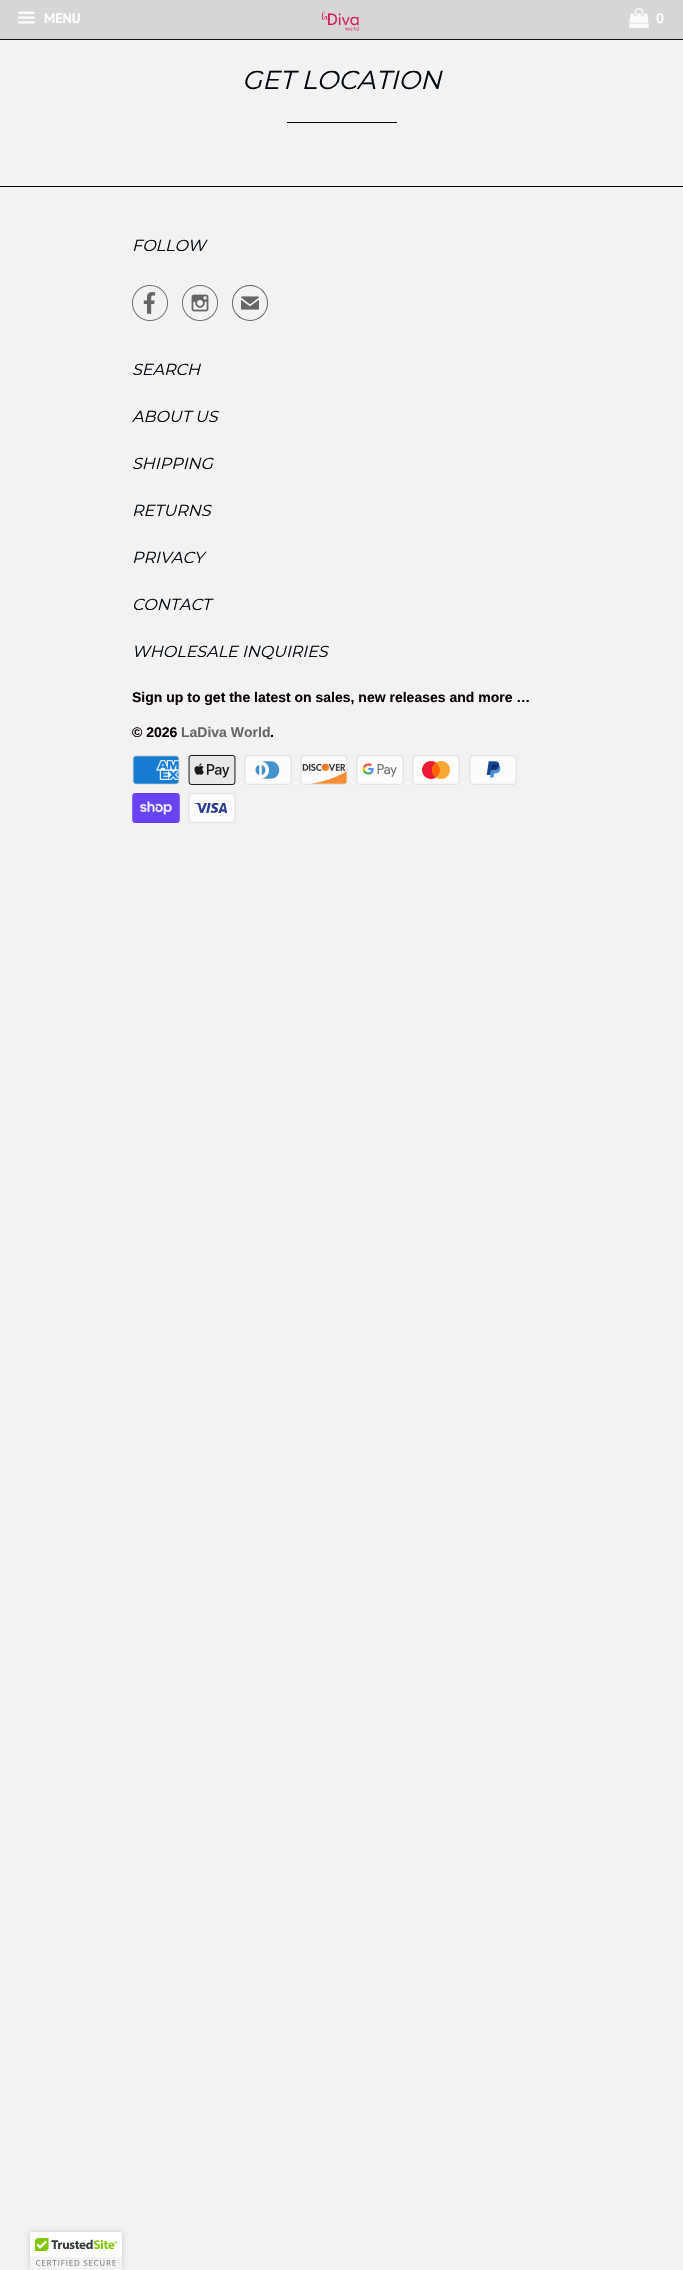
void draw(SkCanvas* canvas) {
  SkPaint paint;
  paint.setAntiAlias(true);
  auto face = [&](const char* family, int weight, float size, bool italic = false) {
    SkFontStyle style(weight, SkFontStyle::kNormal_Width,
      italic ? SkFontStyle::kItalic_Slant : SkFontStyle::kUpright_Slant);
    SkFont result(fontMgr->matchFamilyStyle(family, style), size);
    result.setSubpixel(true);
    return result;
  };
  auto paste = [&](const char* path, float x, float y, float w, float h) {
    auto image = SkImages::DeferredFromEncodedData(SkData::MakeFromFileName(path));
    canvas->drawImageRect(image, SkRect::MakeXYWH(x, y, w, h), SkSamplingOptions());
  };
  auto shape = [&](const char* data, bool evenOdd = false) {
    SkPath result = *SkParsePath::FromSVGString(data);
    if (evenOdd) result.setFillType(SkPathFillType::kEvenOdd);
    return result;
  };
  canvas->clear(0xfff2f2f2);
  paint.setColor(0xffd6d6d7);
  canvas->drawRect(SkRect::MakeXYWH(0, 0, 683, 39), paint);
  paint.setColor(0xff160d1c);
  canvas->drawRect(SkRect::MakeXYWH(0, 39, 683, 1), paint);
  paste("img/1.png", 18, 11, 17, 13);
  paste("img/2.png", 321, 11, 38, 20);
  paste("img/3.png", 629, 8, 20, 20);
  paint.setColor(0xff00080c);
  canvas->drawRect(SkRect::MakeXYWH(287, 122, 110, 1), paint);
  paint.setColor(0xff0c0000);
  canvas->drawRect(SkRect::MakeXYWH(0, 186, 683, 1), paint);
  paste("img/4.png", 132, 285, 36, 36);
  paste("img/5.png", 182, 285, 36, 36);
  paste("img/6.png", 132, 755, 48, 30);
  paste("img/7.png", 188, 755, 48, 30);
  paste("img/8.png", 244, 755, 48, 30);
  paste("img/9.png", 300, 755, 48, 30);
  paste("img/10.png", 356, 755, 48, 30);
  paste("img/11.png", 412, 755, 48, 30);
  paste("img/12.png", 469, 755, 48, 30);
  paste("img/13.png", 132, 793, 48, 30);
  paste("img/14.png", 188, 793, 48, 30);
  paint.setColor(0x33000000);
  paint.setMaskFilter(SkMaskFilter::MakeBlur(kNormal_SkBlurStyle, 2.5f));
  canvas->drawRoundRect(SkRect::MakeXYWH(30, 2232, 92, 38), 2, 2, paint);
  paint.setMaskFilter(nullptr);
  paint.setColor(0xffffffff);
  canvas->drawPath(shape("M32 2232H120C121 2232 122 2233 122 2234V2270H30V2234C30 2233 31 2232 32 2232Z"), paint);
  paste("img/15.png", 30, 2238, 92, 32);
  auto f0 = face("PT Sans", 700, 14);
  paint.setColor(0xfffcfcfc);
  canvas->drawString("MENU", 44, 23, f0, paint);
  canvas->drawString("0", 656, 23, f0, paint);
  auto f1 = face("Montserrat", 400, 26, true);
  paint.setColor(0xff01070c);
  canvas->drawString("GET LOCATION", 242, 89, f1, paint);
  auto f2 = face("Montserrat", 400, 16, true);
  canvas->drawString("FOLLOW", 132, 251, f2, paint);
  auto f3 = face("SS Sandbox", 400, 36);
  paint.setColor(0xff666666);
  canvas->drawString("✉", 232, 321, f3, paint);
  paint.setColor(0xff01070c);
  {
    const struct { const char* s; float x, y; } items[] = {
      {"SEARCH", 132, 375},
      {"ABOUT US", 132, 422},
      {"SHIPPING", 132, 469},
      {"RETURNS", 132, 516},
      {"PRIVACY", 132, 563},
      {"CONTACT", 132, 610},
      {"WHOLESALE INQUIRIES", 132, 657},
    };
    for (auto [s, x, y] : items) {
      canvas->drawString(s, x, y, f2, paint);
    }
  }
  auto f4 = face("Liberation Sans", 700, 14);
  paint.setColor(0xff0a0000);
  canvas->drawString("Sign up to get the latest on sales, new releases and more …", 132, 702, f4, paint);
  canvas->drawString("© 2026", 132, 737, f4, paint);
  paint.setColor(0xff666666);
  canvas->drawString("LaDiva World", 181, 737, f4, paint);
  paint.setColor(0xff0a0000);
  canvas->drawString(".", 270, 737, f4, paint);
}
